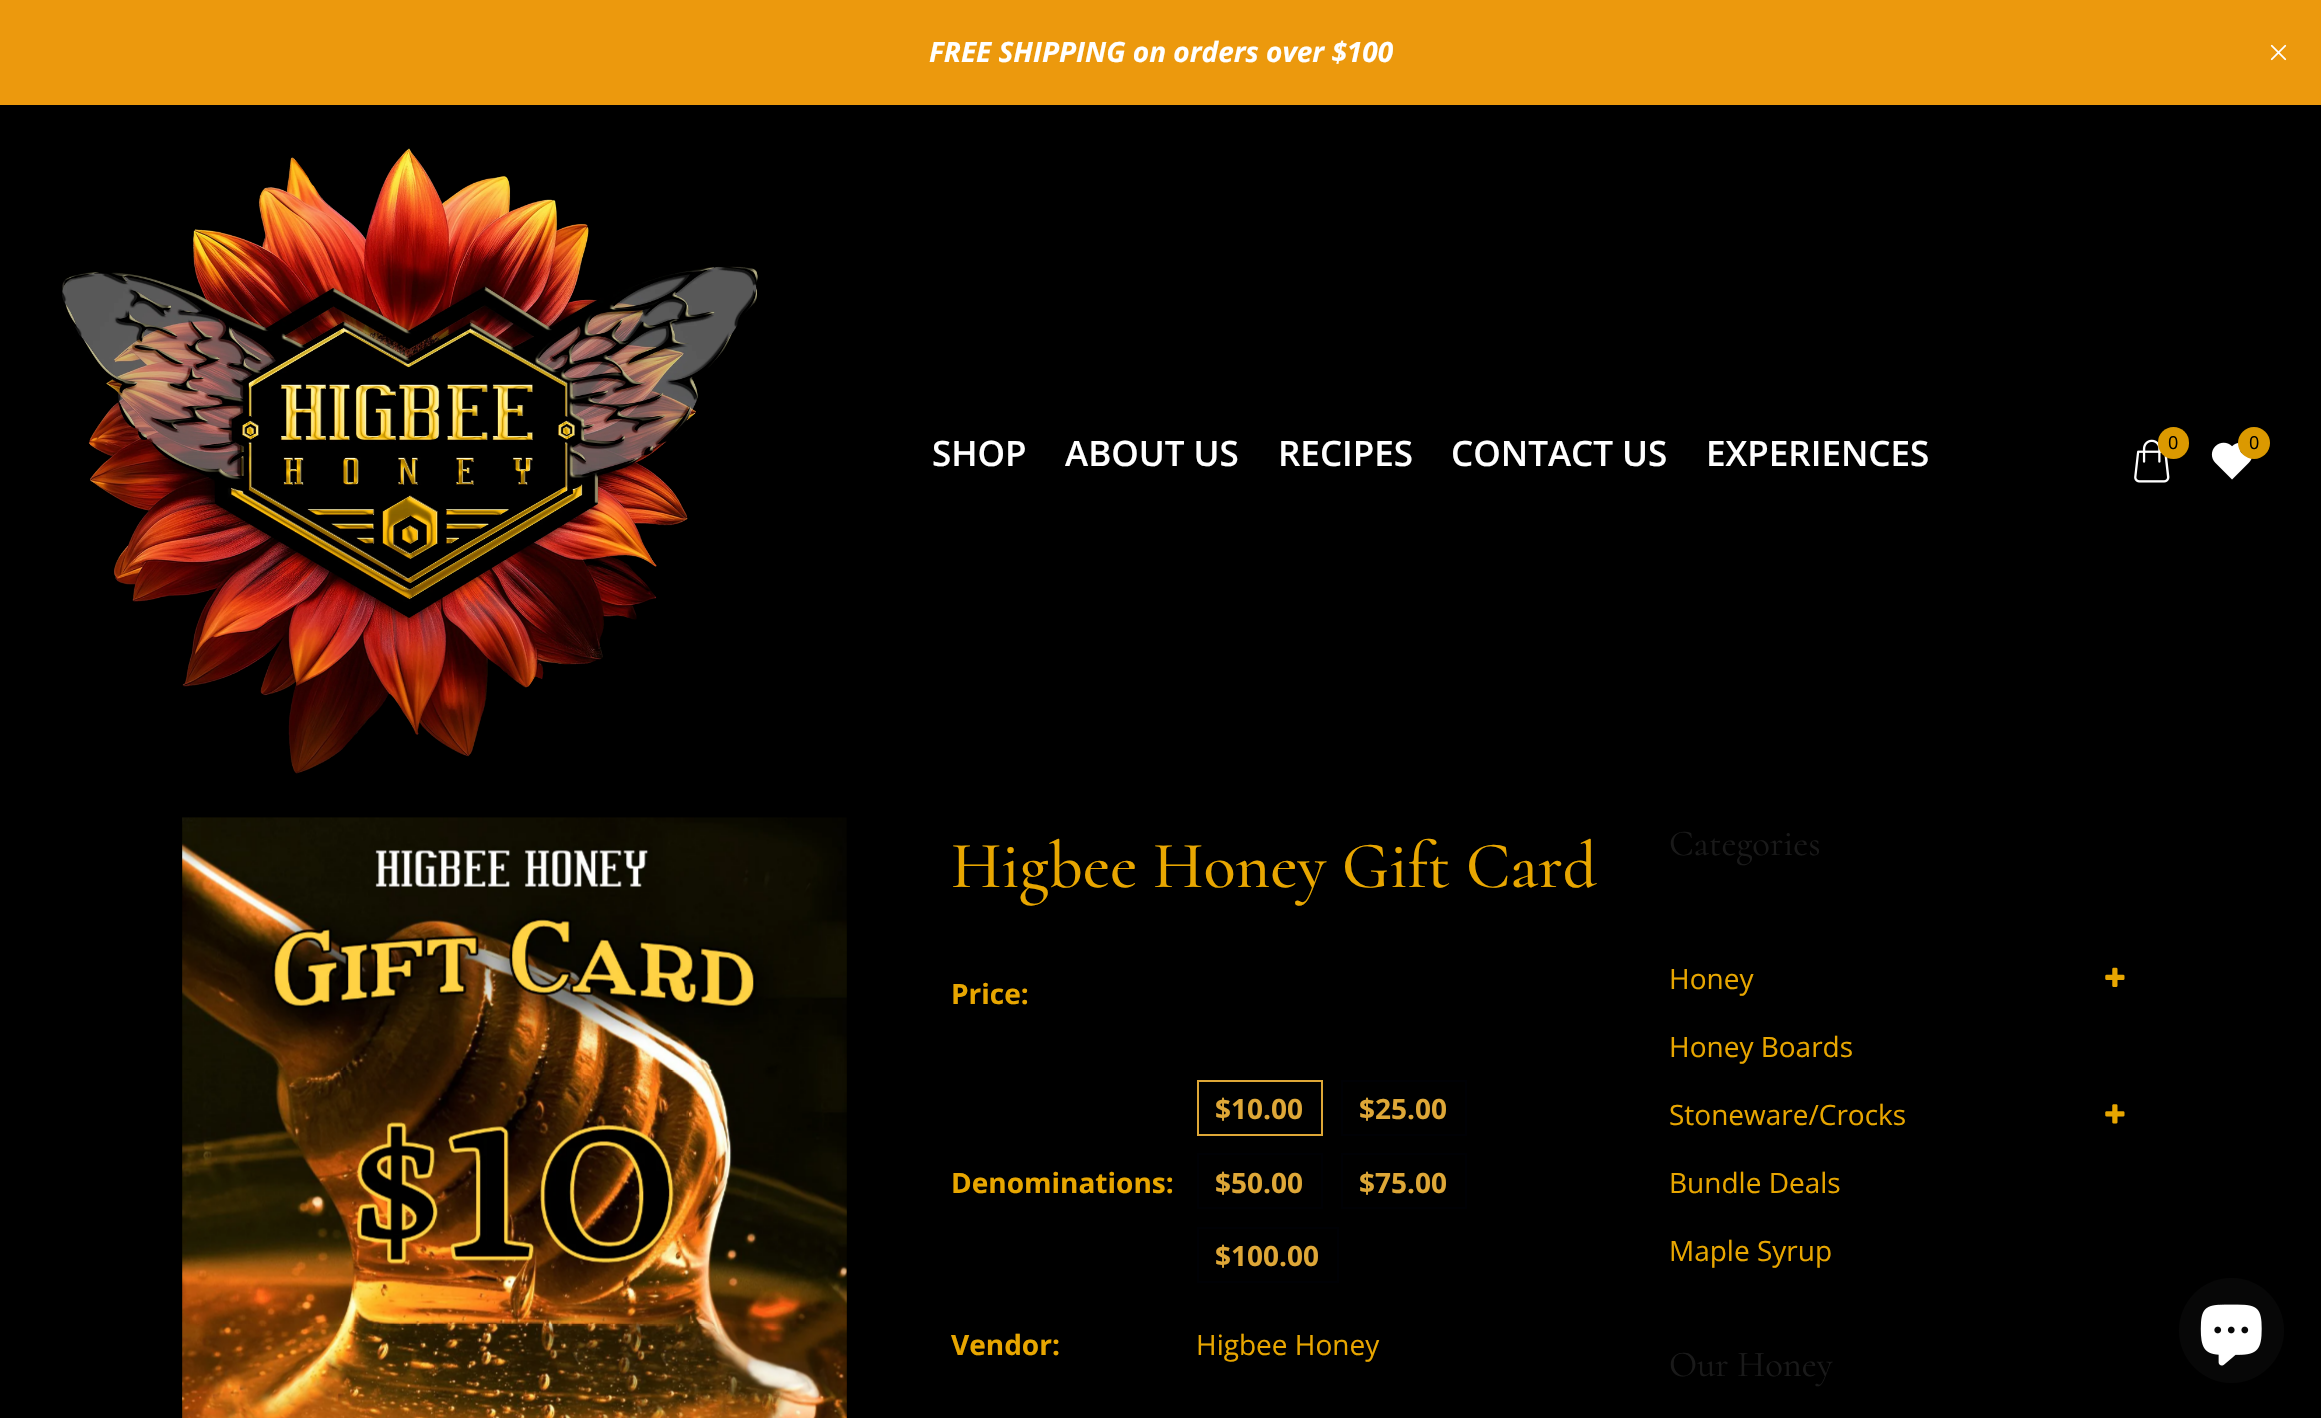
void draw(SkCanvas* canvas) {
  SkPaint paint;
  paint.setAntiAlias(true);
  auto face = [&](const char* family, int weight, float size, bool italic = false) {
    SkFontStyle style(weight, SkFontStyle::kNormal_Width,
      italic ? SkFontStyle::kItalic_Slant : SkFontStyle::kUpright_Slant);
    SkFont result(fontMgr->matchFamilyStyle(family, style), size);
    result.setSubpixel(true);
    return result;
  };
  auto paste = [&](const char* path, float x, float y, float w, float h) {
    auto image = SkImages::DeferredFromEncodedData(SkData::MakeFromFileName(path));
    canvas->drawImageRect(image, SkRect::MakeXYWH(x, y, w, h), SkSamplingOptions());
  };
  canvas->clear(0xff000000);
  paint.setColor(0xffec990d);
  canvas->drawRect(SkRect::MakeXYWH(0, 0, 2321, 105), paint);
  paste("img/1.png", 2270, 44, 17, 17);
  paste("img/2.png", 62, 148, 696, 626);
  paste("img/3.png", 2134, 439, 36, 44);
  paint.setColor(0xffdb9900);
  canvas->drawRoundRect(SkRect::MakeXYWH(2158, 427, 31, 32), 15.5f, 15.5f, paint);
  paste("img/4.png", 2211, 442, 41, 38);
  canvas->drawCircle(2254, 443, 16, paint);
  paste("img/5.png", 182, 817, 665, 601);
  paint.setStroke(true);
  paint.setStrokeWidth(2);
  paint.setColor(0xffdea737);
  canvas->drawRect(SkRect::MakeXYWH(1198, 1081, 124, 54), paint);
  paint.setColor(0xff000105);
  canvas->drawRect(SkRect::MakeXYWH(1342, 1081, 124, 54), paint);
  canvas->drawRect(SkRect::MakeXYWH(1198, 1154, 124, 54), paint);
  canvas->drawRect(SkRect::MakeXYWH(1342, 1154, 124, 54), paint);
  canvas->drawRect(SkRect::MakeXYWH(1198, 1228, 140, 54), paint);
  paste("img/6.png", 2105, 967, 20, 20);
  paste("img/7.png", 2105, 1104, 20, 20);
  paint.setStroke(false);
  paint.setColor(0xff070707);
  canvas->drawCircle(2231.5f, 1330.5f, 52.5f, paint);
  paste("img/8.png", 2200, 1304, 62, 62);
  auto f0 = face("Open Sans", 700, 28, true);
  paint.setColor(0xffffffff);
  canvas->drawString("FREE SHIPPING on orders over $100", 929, 62, f0, paint);
  auto f1 = face("Open Sans", 600, 35);
  {
    const struct { const char* s; float x, y; } items[] = {
      {"SHOP", 932, 466},
      {"ABOUT US", 1065, 466},
      {"RECIPES", 1278, 466},
      {"CONTACT US", 1451, 466},
      {"EXPERIENCES", 1706, 466},
    };
    for (auto [s, x, y] : items) {
      canvas->drawString(s, x, y, f1, paint);
    }
  }
  auto f2 = face("Open Sans", 400, 18);
  paint.setColor(0xff000000);
  canvas->drawString("0", 2168, 449, f2, paint);
  canvas->drawString("0", 2249, 449, f2, paint);
  auto f3 = face("Cormorant", 500, 66.5f);
  paint.setColor(0xffe8a600);
  canvas->drawString("Higbee Honey Gift Card", 951, 887, f3, paint);
  auto f4 = face("Open Sans", 700, 28);
  canvas->drawString("Price:", 951, 1004, f4, paint);
  canvas->drawString("Denominations:", 951, 1193, f4, paint);
  paint.setColor(0xffdea737);
  {
    const struct { const char* s; float x, y; } items[] = {
      {"$10.00", 1215, 1119},
      {"$25.00", 1359, 1119},
      {"$50.00", 1215, 1193},
      {"$75.00", 1359, 1193},
      {"$100.00", 1215, 1266},
    };
    for (auto [s, x, y] : items) {
      canvas->drawString(s, x, y, f4, paint);
    }
  }
  paint.setColor(0xffe8a600);
  canvas->drawString("Vendor:", 951, 1355, f4, paint);
  auto f5 = face("Open Sans", 400, 28);
  canvas->drawString("Higbee Honey", 1196, 1355, f5, paint);
  auto f6 = face("Cormorant", 400, 36.75f);
  paint.setColor(0xff1a1a1a);
  canvas->drawString("Categories", 1669, 855, f6, paint);
  paint.setColor(0xffe8a600);
  {
    const struct { const char* s; float x, y; } items[] = {
      {"Honey", 1669, 989},
      {"Honey Boards", 1669, 1057},
      {"Stoneware/Crocks", 1669, 1125},
      {"Bundle Deals", 1669, 1193},
      {"Maple Syrup", 1669, 1261},
    };
    for (auto [s, x, y] : items) {
      canvas->drawString(s, x, y, f5, paint);
    }
  }
  paint.setColor(0xff1a1a1a);
  canvas->drawString("Our Honey", 1669, 1376, f6, paint);
}
